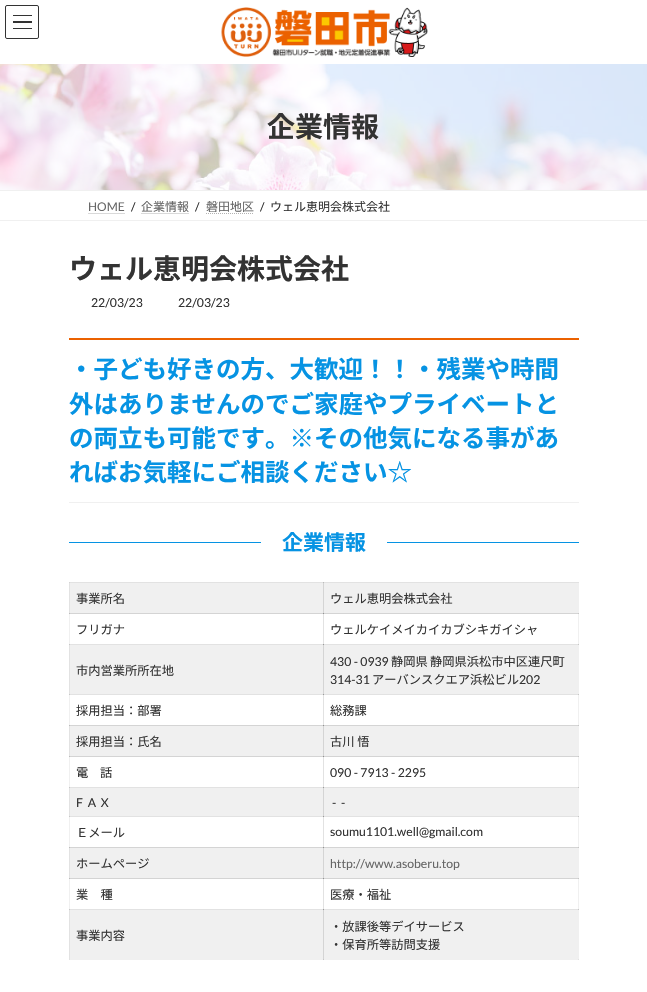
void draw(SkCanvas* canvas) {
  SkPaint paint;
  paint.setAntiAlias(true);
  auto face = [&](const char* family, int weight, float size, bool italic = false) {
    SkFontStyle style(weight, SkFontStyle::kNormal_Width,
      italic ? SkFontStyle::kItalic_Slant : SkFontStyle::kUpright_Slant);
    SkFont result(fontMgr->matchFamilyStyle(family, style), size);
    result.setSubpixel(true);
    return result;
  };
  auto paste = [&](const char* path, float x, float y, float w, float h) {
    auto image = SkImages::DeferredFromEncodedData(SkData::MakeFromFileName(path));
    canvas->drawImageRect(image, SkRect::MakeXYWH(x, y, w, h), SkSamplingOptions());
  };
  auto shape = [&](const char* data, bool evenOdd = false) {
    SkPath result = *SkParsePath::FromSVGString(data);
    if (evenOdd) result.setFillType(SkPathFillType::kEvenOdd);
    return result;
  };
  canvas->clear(0xffffffff);
  {
    const struct { float x, y, w, h; SkColor color; } items[] = {
      {578, 582, 1, 328, 0xfff0f0f0},
      {578, 582, 1, 1, 0xffe2e2e2},
      {69, 613, 1, 32, 0xfff0f0f0},
      {323, 613, 1, 32, 0xffe2e2e2},
      {578, 613, 1, 1, 0xffc7c7c7},
      {69, 644, 510, 1, 0xffe2e2e2},
      {69, 644, 1, 1, 0xffc7c7c7},
      {69, 694, 1, 32, 0xfff0f0f0},
      {69, 694, 255, 1, 0xffe2e2e2},
      {69, 694, 1, 1, 0xffc7c7c7},
      {323, 694, 1, 32, 0xffe2e2e2},
      {578, 725, 1, 1, 0xffc7c7c7},
      {69, 756, 1, 32, 0xfff0f0f0},
      {323, 756, 1, 32, 0xffe2e2e2},
      {578, 756, 1, 1, 0xffc7c7c7},
      {69, 787, 510, 1, 0xffe2e2e2},
      {69, 787, 1, 1, 0xffc7c7c7},
      {69, 816, 1, 32, 0xfff0f0f0},
      {69, 816, 255, 1, 0xffe2e2e2},
      {69, 816, 1, 1, 0xffc7c7c7},
      {323, 816, 1, 32, 0xffe2e2e2},
      {578, 847, 1, 1, 0xffc7c7c7},
      {69, 878, 1, 32, 0xfff0f0f0},
      {323, 878, 1, 32, 0xffe2e2e2},
      {578, 878, 1, 1, 0xffc7c7c7},
      {69, 959, 510, 1, 0xfff0f0f0},
      {69, 909, 255, 1, 0xffe2e2e2},
      {578, 909, 1, 51, 0xfff0f0f0},
      {578, 959, 1, 1, 0xffe2e2e2},
      {13, 15, 19, 1, 0xff333333},
      {13, 21, 19, 2, 0xff333333},
      {13, 28, 19, 1, 0xff333333},
    };
    for (auto [x, y, w, h, color] : items) {
      paint.setColor(color);
      canvas->drawRect(SkRect::MakeXYWH(x, y, w, h), paint);
    }
  }
  paint.setStroke(true);
  paint.setStrokeWidth(1);
  canvas->drawRoundRect(SkRect::MakeXYWH(5.5f, 5.5f, 33, 33), 1.5f, 1.5f, paint);
  paste("img/1.png", 221, 7, 207, 50);
  paste("img/2.png", 0, 64, 647, 126);
  paint.setStroke(false);
  paint.setColor(0xfff0f0f0);
  canvas->drawRect(SkRect::MakeXYWH(0, 190, 647, 1), paint);
  canvas->drawRect(SkRect::MakeXYWH(0, 220, 647, 1), paint);
  paint.setStroke(true);
  paint.setColor(0xffb3b3b3);
  paint.setPathEffect(SkDashPathEffect::Make({{1, 1}}, 0));
  canvas->drawPath(shape("M88.5 213.5H125"), paint);
  paint.setPathEffect(nullptr);
  paint.setPathEffect(SkDashPathEffect::Make({{1, 1}}, 0));
  canvas->drawPath(shape("M141.5 213.5H189.5"), paint);
  paint.setPathEffect(nullptr);
  paint.setPathEffect(SkDashPathEffect::Make({{1, 1}}, 0));
  canvas->drawPath(shape("M206 213.5H254"), paint);
  paint.setPathEffect(nullptr);
  paint.setStroke(false);
  {
    const struct { float x, y, w, h; SkColor color; } items[] = {
      {69, 338, 510, 2, 0xffeb6100},
      {69, 502, 510, 1, 0xfff0f0f0},
      {69, 542, 192, 1, 0xff0693e3},
      {387, 542, 192, 1, 0xff0693e3},
      {70, 583, 508, 30, 0xfff0f0f0},
      {69, 582, 1, 32, 0xffe2e2e2},
      {69, 582, 255, 1, 0xffe2e2e2},
      {69, 582, 1, 1, 0xffd4d4d4},
      {323, 582, 1, 32, 0xffd4d4d4},
      {323, 582, 255, 1, 0xffe2e2e2},
      {323, 582, 1, 1, 0xffbbbbbb},
      {69, 613, 509, 1, 0xffd4d4d4},
      {69, 613, 1, 1, 0xffbbbbbb},
      {323, 613, 1, 1, 0xff929292},
      {70, 645, 508, 49, 0xfff0f0f0},
      {69, 645, 1, 49, 0xffe2e2e2},
      {323, 645, 1, 49, 0xffd4d4d4},
      {323, 644, 1, 1, 0xff9b9b9b},
      {578, 644, 1, 1, 0xffc7c7c7},
      {323, 694, 256, 1, 0xffe2e2e2},
      {323, 694, 1, 1, 0xff9b9b9b},
      {578, 694, 1, 1, 0xffc7c7c7},
      {70, 726, 508, 30, 0xfff0f0f0},
      {69, 725, 1, 32, 0xffe2e2e2},
      {69, 725, 255, 1, 0xffd4d4d4},
      {69, 725, 1, 1, 0xffbbbbbb},
      {323, 725, 1, 32, 0xffd4d4d4},
      {323, 725, 255, 1, 0xffd4d4d4},
      {323, 725, 1, 1, 0xff929292},
      {69, 756, 509, 1, 0xffd4d4d4},
      {69, 756, 1, 1, 0xffbbbbbb},
      {323, 756, 1, 1, 0xff929292},
      {70, 788, 508, 28, 0xfff0f0f0},
      {69, 788, 1, 28, 0xffe2e2e2},
      {323, 788, 1, 28, 0xffd4d4d4},
      {323, 787, 1, 1, 0xff9b9b9b},
      {578, 787, 1, 1, 0xffc7c7c7},
      {323, 816, 256, 1, 0xffe2e2e2},
      {323, 816, 1, 1, 0xff9b9b9b},
      {578, 816, 1, 1, 0xffc7c7c7},
      {70, 848, 508, 30, 0xfff0f0f0},
      {69, 847, 1, 32, 0xffe2e2e2},
      {69, 847, 255, 1, 0xffd4d4d4},
      {69, 847, 1, 1, 0xffbbbbbb},
      {323, 847, 1, 32, 0xffd4d4d4},
      {323, 847, 255, 1, 0xffd4d4d4},
      {323, 847, 1, 1, 0xff929292},
      {69, 878, 509, 1, 0xffd4d4d4},
      {69, 878, 1, 1, 0xffbbbbbb},
      {323, 878, 1, 1, 0xff929292},
      {70, 910, 508, 49, 0xfff0f0f0},
      {69, 909, 1, 51, 0xffe2e2e2},
      {69, 909, 1, 1, 0xffc7c7c7},
      {323, 909, 256, 1, 0xffe2e2e2},
      {578, 909, 1, 1, 0xffc7c7c7},
      {323, 909, 1, 51, 0xffd4d4d4},
      {323, 959, 1, 1, 0xffc7c7c7},
      {323, 909, 1, 1, 0xff9b9b9b},
    };
    for (auto [x, y, w, h, color] : items) {
      paint.setColor(color);
      canvas->drawRect(SkRect::MakeXYWH(x, y, w, h), paint);
    }
  }
  auto f0 = face("Noto Sans JP", 700, 28);
  paint.setColor(0xff333333);
  canvas->drawString("企業情報", 267, 137, f0, paint);
  auto f1 = face("Lato", 400, 12);
  paint.setColor(0xff666666);
  canvas->drawString("HOME", 88, 211, f1, paint);
  paint.setColor(0xff333333);
  canvas->drawString("/", 131, 211, f1, paint);
  auto f2 = face("Noto Sans JP", 400, 12);
  paint.setColor(0xff666666);
  canvas->drawString("企業情報", 141, 211, f2, paint);
  paint.setColor(0xff333333);
  canvas->drawString("/", 195, 211, f1, paint);
  paint.setColor(0xff666666);
  canvas->drawString("磐田地区", 206, 211, f2, paint);
  paint.setColor(0xff333333);
  canvas->drawString("/", 260, 211, f1, paint);
  canvas->drawString("ウェル恵明会株式会社", 270, 211, f2, paint);
  canvas->drawString("ウェル恵明会株式会社", 69, 279, f0, paint);
  auto f3 = face("Lato", 400, 12.25f);
  canvas->drawString("22/03/23", 91, 307, f3, paint);
  canvas->drawString("22/03/23", 178, 307, f3, paint);
  auto f4 = face("Noto Sans JP", 700, 24.5f);
  paint.setColor(0xff0693e3);
  {
    const struct { const char* s; float x, y; } items[] = {
      {"・子ども好きの方、大歓迎！！・残業や時間", 69, 378},
      {"外はありませんのでご家庭やプライベートと", 69, 413},
      {"の両立も可能です。※その他気になる事があ", 69, 447},
      {"ればお気軽にご相談ください☆", 69, 481},
    };
    for (auto [s, x, y] : items) {
      canvas->drawString(s, x, y, f4, paint);
    }
  }
  auto f5 = face("Noto Sans JP", 700, 21);
  canvas->drawString("企業情報", 282, 550, f5, paint);
  auto f6 = face("Noto Sans JP", 400, 12.25f);
  paint.setColor(0xff333333);
  {
    const struct { const char* s; float x, y; } items[] = {
      {"事業所名", 76, 603},
      {"ウェル恵明会株式会社", 330, 603},
      {"フリガナ", 76, 634},
      {"ウェルケイメイカイカブシキガイシャ", 330, 634},
      {"市内営業所所在地", 76, 675},
    };
    for (auto [s, x, y] : items) {
      canvas->drawString(s, x, y, f6, paint);
    }
  }
  canvas->drawString("430 - 0939", 330, 666, f3, paint);
  canvas->drawString("静岡県", 391, 666, f6, paint);
  canvas->drawString("静岡県浜松市中区連尺町", 430, 666, f6, paint);
  canvas->drawString("314-31", 330, 684, f3, paint);
  canvas->drawString("アーバンスクエア浜松ビル", 372, 684, f6, paint);
  canvas->drawString("202", 519, 684, f3, paint);
  {
    const struct { const char* s; float x, y; } items[] = {
      {"採用担当：部署", 76, 715},
      {"総務課", 330, 715},
      {"採用担当：氏名", 76, 746},
      {"古川 悟", 330, 746},
      {"電", 76, 777},
      {"話", 100, 777},
    };
    for (auto [s, x, y] : items) {
      canvas->drawString(s, x, y, f6, paint);
    }
  }
  {
    const struct { const char* s; float x, y; } items[] = {
      {"090 - 7913 - 2295", 330, 777},
      {"F  A  X", 76, 807},
      {"-  -", 332, 807},
    };
    for (auto [s, x, y] : items) {
      canvas->drawString(s, x, y, f3, paint);
    }
  }
  canvas->drawString("Ｅメール", 76, 837, f6, paint);
  canvas->drawString("soumu1101.well@gmail.com", 330, 836, f3, paint);
  canvas->drawString("ホームページ", 76, 868, f6, paint);
  paint.setColor(0xff666666);
  canvas->drawString("http://www.asoberu.top", 330, 868, f3, paint);
  paint.setColor(0xff333333);
  {
    const struct { const char* s; float x, y; } items[] = {
      {"業　種", 76, 899},
      {"医療・福祉", 330, 899},
      {"事業内容", 76, 940},
      {"・放課後等デイサービス", 330, 931},
      {"・保育所等訪問支援", 330, 949},
    };
    for (auto [s, x, y] : items) {
      canvas->drawString(s, x, y, f6, paint);
    }
  }
}
